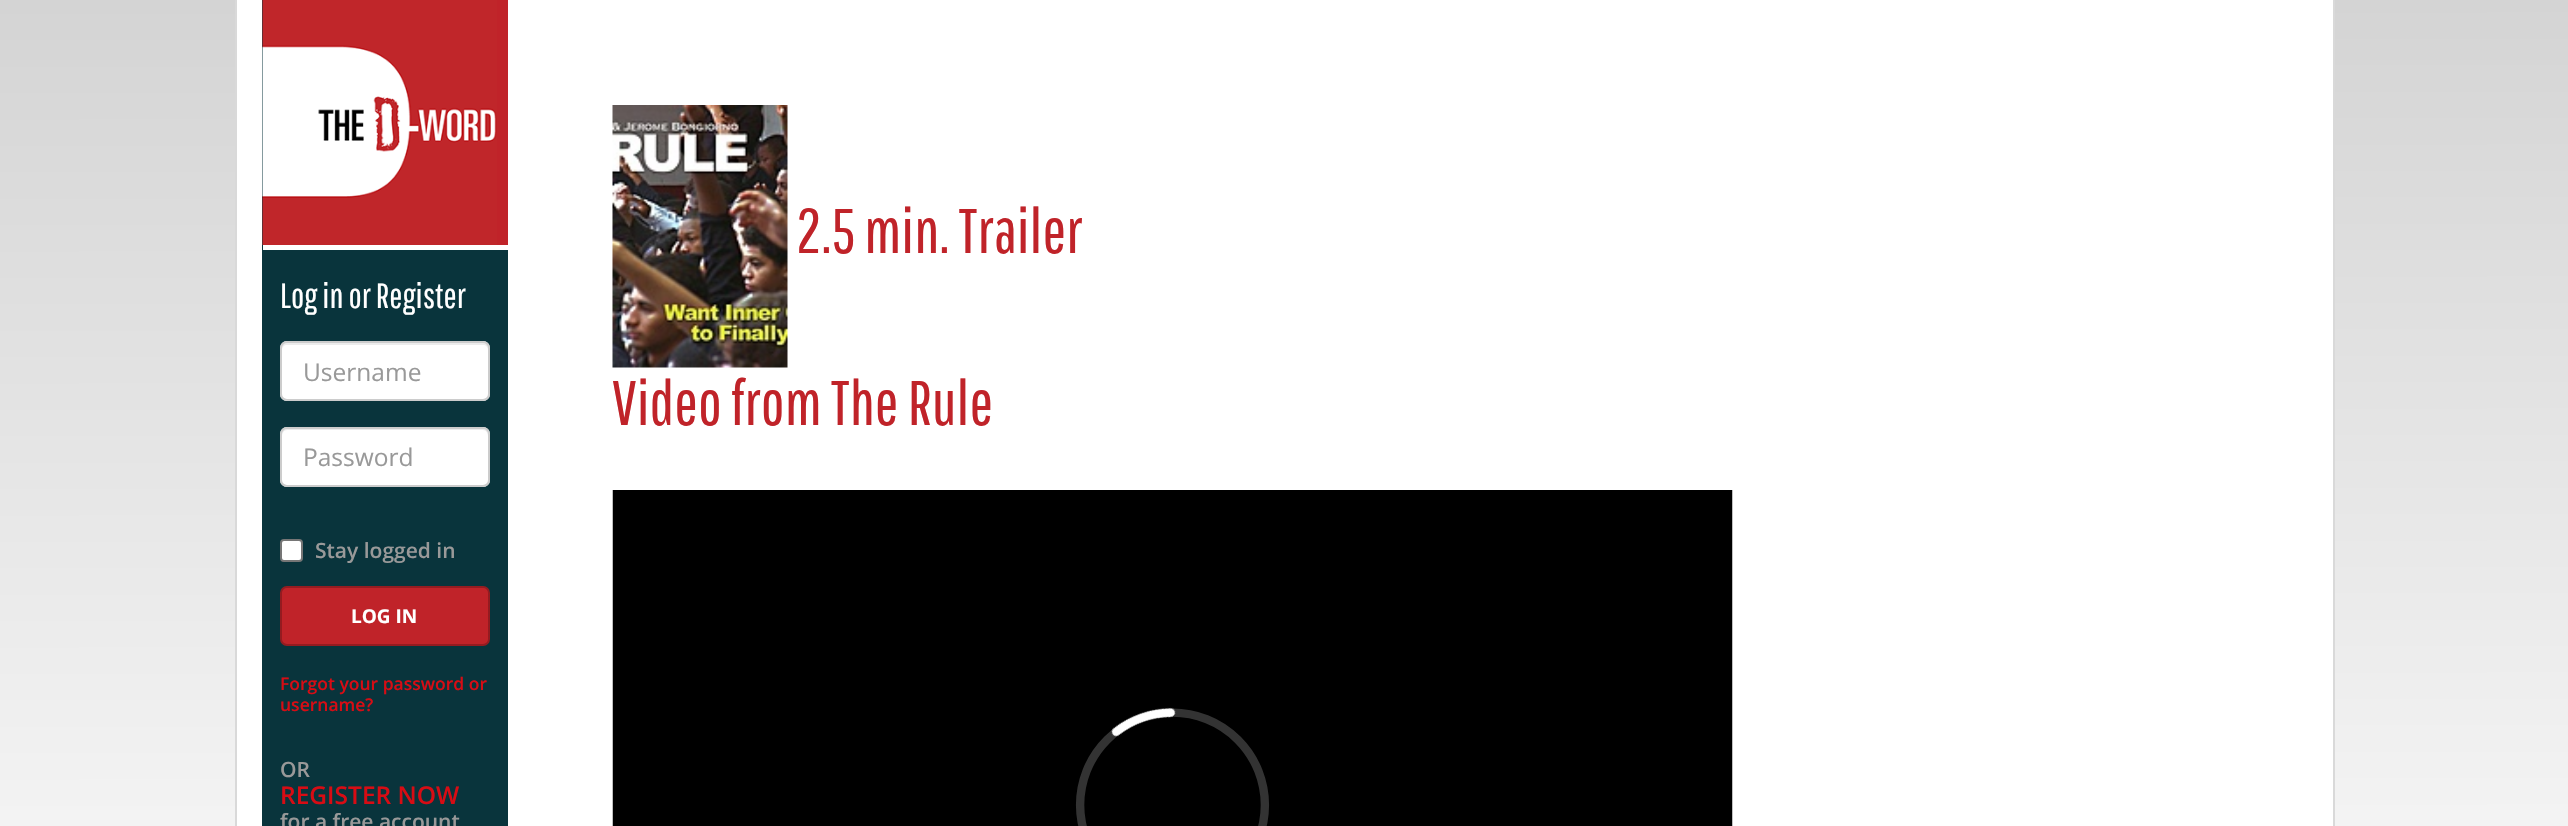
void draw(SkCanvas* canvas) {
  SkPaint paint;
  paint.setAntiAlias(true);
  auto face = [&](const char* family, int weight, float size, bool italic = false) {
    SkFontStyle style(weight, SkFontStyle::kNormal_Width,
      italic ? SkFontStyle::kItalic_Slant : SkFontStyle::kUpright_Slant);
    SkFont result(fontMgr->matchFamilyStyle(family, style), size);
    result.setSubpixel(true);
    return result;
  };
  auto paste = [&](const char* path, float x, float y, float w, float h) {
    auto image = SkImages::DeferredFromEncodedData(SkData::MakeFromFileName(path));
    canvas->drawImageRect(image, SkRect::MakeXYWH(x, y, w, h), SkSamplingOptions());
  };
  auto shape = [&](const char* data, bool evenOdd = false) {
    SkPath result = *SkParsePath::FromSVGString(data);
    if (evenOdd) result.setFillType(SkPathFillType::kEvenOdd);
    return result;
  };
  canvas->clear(0xffffffff);
  {
    const SkColor colors[] = {0xffd4d4d4, 0xffffffff};
    const float stops[] = {0, 0.66f};
    const SkPoint ends[] = {{1284, 0}, {1285, 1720}};
    paint.setShader(SkGradientShader::MakeLinear(ends, colors, stops, 2, SkTileMode::kClamp));
    paint.setAlpha(255);
  }
  canvas->drawRect(SkRect::MakeXYWH(0, 0, 2568, 826), paint);
  paint.setShader(nullptr);
  {
    const struct { float x, y, w, h; SkColor color; } items[] = {
      {237, 0, 2096, 826, 0xffffffff},
      {262, 0, 246, 826, 0xff09343c},
      {2333, 0, 2, 826, 0xffd9d9d9},
      {235, 0, 2, 826, 0xffd9d9d9},
      {497, 0, 11, 245, 0xffc02329},
      {263, 245, 245, 5, 0xffffffff},
    };
    for (auto [x, y, w, h, color] : items) {
      paint.setColor(color);
      canvas->drawRect(SkRect::MakeXYWH(x, y, w, h), paint);
    }
  }
  paste("img/1.png", 262, 0, 235, 245);
  canvas->drawRoundRect(SkRect::MakeXYWH(280, 341, 210, 60), 7, 7, paint);
  paint.setColor(0xffececec);
  canvas->drawPath(shape("M287 345H483C486 345 488 347 488 350V348C488 345 486 343 483 343H287C284 343 282 345 282 348V350C282 347 284 345 287 345Z"), paint);
  paint.setStroke(true);
  paint.setStrokeWidth(2);
  paint.setColor(0xffcccccc);
  canvas->drawRoundRect(SkRect::MakeXYWH(281, 342, 208, 58), 6, 6, paint);
  paint.setStroke(false);
  paint.setColor(0xffffffff);
  canvas->drawRoundRect(SkRect::MakeXYWH(280, 427, 210, 60), 7, 7, paint);
  paint.setColor(0xffececec);
  canvas->drawPath(shape("M287 430H483C486 430 488 433 488 436V434C488 431 486 429 483 429H287C284 429 282 431 282 434V436C282 433 284 430 287 430Z"), paint);
  paint.setStroke(true);
  paint.setColor(0xffcccccc);
  canvas->drawRoundRect(SkRect::MakeXYWH(281, 428, 208, 58), 6, 6, paint);
  paint.setStroke(false);
  paint.setColor(0xffffffff);
  canvas->drawRoundRect(SkRect::MakeXYWH(281, 540, 21, 21), 3, 3, paint);
  paint.setStroke(true);
  paint.setColor(0xff767676);
  canvas->drawRoundRect(SkRect::MakeXYWH(281, 540, 21, 21), 3, 3, paint);
  paint.setStroke(false);
  paint.setColor(0xffc02329);
  canvas->drawRoundRect(SkRect::MakeXYWH(281, 587, 208, 58), 6, 6, paint);
  paint.setStroke(true);
  paint.setColor(0xff951b20);
  canvas->drawRoundRect(SkRect::MakeXYWH(281, 587, 208, 58), 6, 6, paint);
  paste("img/2.png", 612, 105, 176, 263);
  paste("img/3.png", 612, 490, 1121, 336);
  auto f0 = face("Pathway Gothic One", 400, 35);
  paint.setStroke(false);
  paint.setColor(0xffffffff);
  canvas->drawString("Log in or Register", 280, 308, f0, paint);
  auto f1 = face("Open Sans", 400, 24.5f);
  paint.setColor(0xff999999);
  canvas->drawString("Username", 303, 381, f1, paint);
  canvas->drawString("Password", 303, 466, f1, paint);
  auto f2 = face("Open Sans", 600, 21);
  canvas->drawString("Stay logged in", 315, 558, f2, paint);
  auto f3 = face("Open Sans", 700, 19);
  paint.setColor(0xffffffff);
  canvas->drawString("LOG IN", 351, 623, f3, paint);
  auto f4 = face("Open Sans", 600, 17.5f);
  paint.setColor(0xffd70c14);
  canvas->drawString("Forgot your password or", 280, 690, f4, paint);
  canvas->drawString("username?", 280, 711, f4, paint);
  paint.setColor(0xff999999);
  canvas->drawString("OR", 280, 777, f2, paint);
  auto f5 = face("Open Sans", 600, 24.5f);
  paint.setColor(0xffd70c14);
  canvas->drawString("REGISTER NOW", 280, 804, f5, paint);
  paint.setColor(0xff999999);
  canvas->drawString("for a free account", 280, 829, f2, paint);
  auto f6 = face("Pathway Gothic One", 400, 63);
  paint.setColor(0xffc02329);
  canvas->drawString("2.5 min. Trailer", 796, 253, f6, paint);
  canvas->drawString("Video from The Rule", 612, 425, f6, paint);
}
